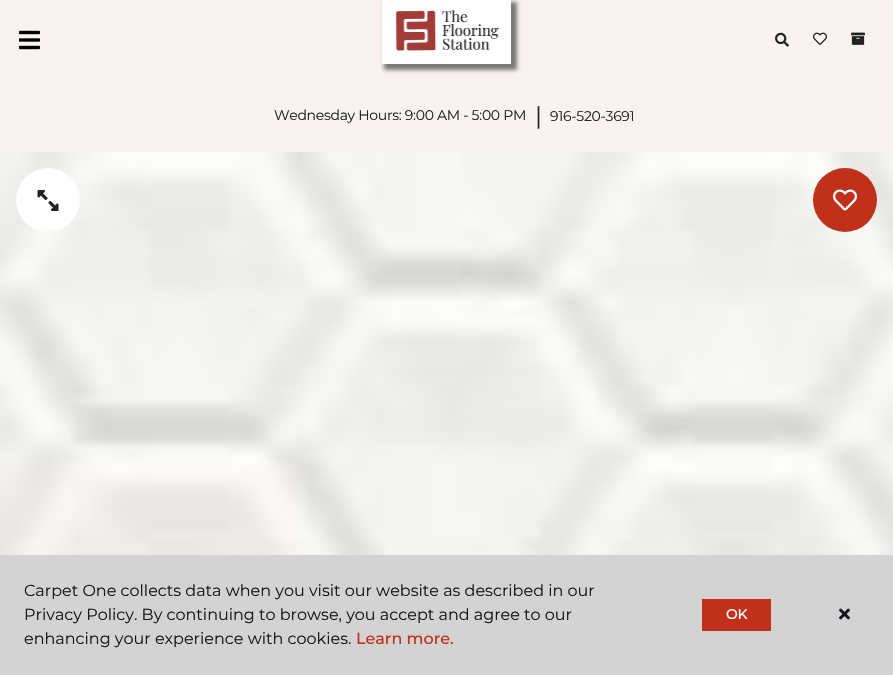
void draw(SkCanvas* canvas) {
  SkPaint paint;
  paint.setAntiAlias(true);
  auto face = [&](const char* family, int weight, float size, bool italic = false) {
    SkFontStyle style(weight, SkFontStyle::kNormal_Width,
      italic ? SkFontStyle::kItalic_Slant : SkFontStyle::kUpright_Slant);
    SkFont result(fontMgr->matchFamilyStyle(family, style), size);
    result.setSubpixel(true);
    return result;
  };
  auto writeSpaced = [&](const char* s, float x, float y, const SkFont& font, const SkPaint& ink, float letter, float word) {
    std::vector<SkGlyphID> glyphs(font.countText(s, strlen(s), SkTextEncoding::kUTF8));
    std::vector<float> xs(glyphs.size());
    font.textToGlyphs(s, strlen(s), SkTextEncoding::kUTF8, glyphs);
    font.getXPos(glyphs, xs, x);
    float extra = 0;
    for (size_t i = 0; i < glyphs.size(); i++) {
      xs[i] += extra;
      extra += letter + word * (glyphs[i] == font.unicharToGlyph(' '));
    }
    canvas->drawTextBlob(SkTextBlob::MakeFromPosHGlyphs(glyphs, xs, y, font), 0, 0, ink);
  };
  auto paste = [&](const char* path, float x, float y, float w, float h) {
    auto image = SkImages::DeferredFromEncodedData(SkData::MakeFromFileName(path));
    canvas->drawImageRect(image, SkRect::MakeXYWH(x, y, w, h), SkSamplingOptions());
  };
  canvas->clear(0xfff9f2f0);
  paste("img/1.png", 19, 30, 21, 20);
  paint.setColor(0x80000000);
  paint.setMaskFilter(SkMaskFilter::MakeBlur(kNormal_SkBlurStyle, 2));
  canvas->drawRect(SkRect::MakeXYWH(384, 2, 133, 68), paint);
  paint.setMaskFilter(nullptr);
  paint.setColor(0xffffffff);
  canvas->drawRect(SkRect::MakeXYWH(382, 0, 129, 64), paint);
  paste("img/2.png", 395, 10, 105, 41);
  paste("img/3.png", 775, 32, 14, 15);
  paste("img/4.png", 813, 32, 14, 13);
  paste("img/5.png", 851, 32, 14, 13);
  paste("img/6.png", 0, 152, 893, 403);
  canvas->drawCircle(48, 200, 32, paint);
  paste("img/7.png", 37, 190, 22, 21);
  paint.setColor(0xffbf311a);
  canvas->drawCircle(845, 200, 32, paint);
  paste("img/8.png", 833, 189, 24, 22);
  paint.setColor(0xffd3d3d4);
  canvas->drawRect(SkRect::MakeXYWH(0, 555, 893, 120), paint);
  paint.setColor(0xffbf311a);
  canvas->drawRect(SkRect::MakeXYWH(702, 599, 69, 32), paint);
  paste("img/9.png", 839, 608, 11, 12);
  auto f0 = face("Montserrat", 400, 14);
  paint.setColor(0xff222222);
  writeSpaced("Wednesday Hours: 9:00 AM - 5:00 PM", 274, 120, f0, paint, -0.3f, 0);
  auto f1 = face("Montserrat", 400, 24);
  writeSpaced("|", 535, 124, f1, paint, -0.3f, 0);
  writeSpaced("916-520-3691", 550, 121, f0, paint, -0.3f, 0);
  auto f2 = face("Montserrat", 400, 16);
  paint.setColor(0xff141619);
  {
    const struct { const char* s; float x, y; } items[] = {
      {"Carpet One collects data when you visit our website as described in our", 24, 596},
      {"Privacy Policy. By continuing to browse, you accept and agree to our", 24, 620},
      {"enhancing your experience with cookies.", 24, 644},
    };
    for (auto [s, x, y] : items) {
      canvas->drawString(s, x, y, f2, paint);
    }
  }
  auto f3 = face("Montserrat", 500, 16);
  paint.setColor(0xffbf311a);
  canvas->drawString("Learn more.", 356, 644, f3, paint);
  auto f4 = face("Montserrat", 500, 14);
  paint.setColor(0xffffffff);
  writeSpaced("OK", 726, 619, f4, paint, -0.3f, 0);
}
